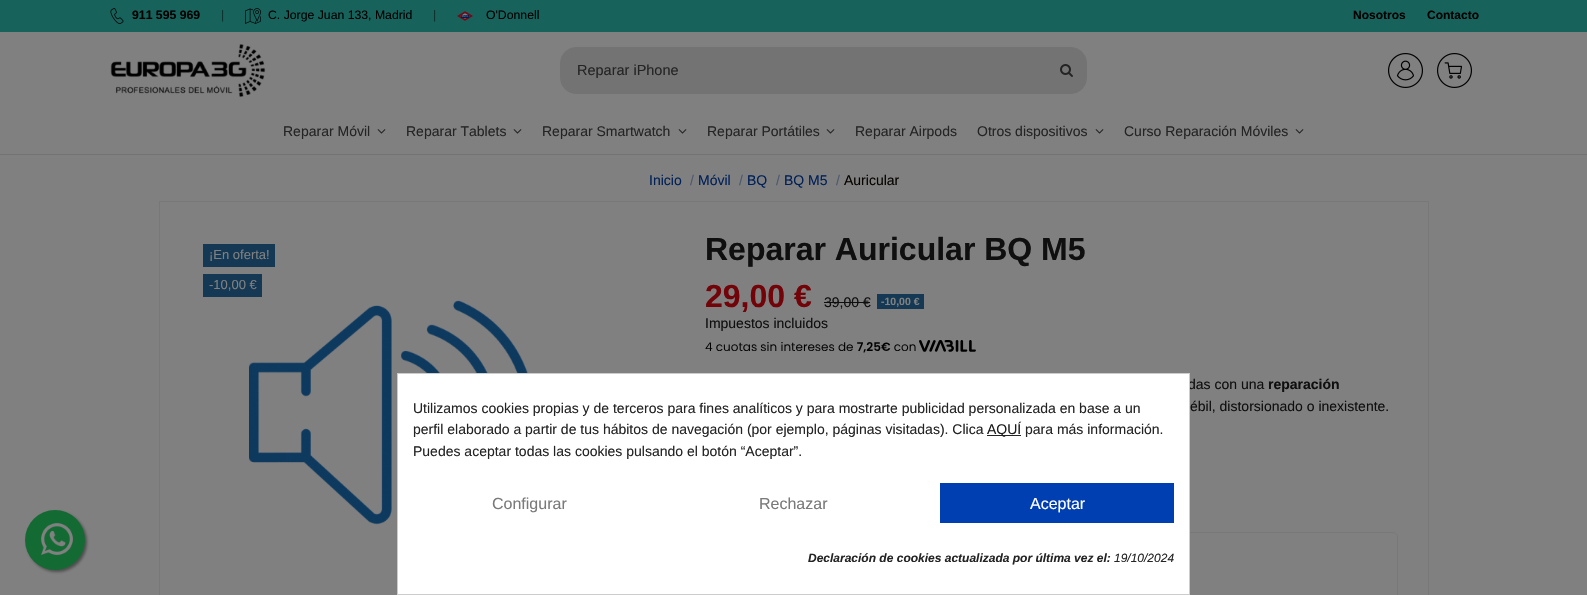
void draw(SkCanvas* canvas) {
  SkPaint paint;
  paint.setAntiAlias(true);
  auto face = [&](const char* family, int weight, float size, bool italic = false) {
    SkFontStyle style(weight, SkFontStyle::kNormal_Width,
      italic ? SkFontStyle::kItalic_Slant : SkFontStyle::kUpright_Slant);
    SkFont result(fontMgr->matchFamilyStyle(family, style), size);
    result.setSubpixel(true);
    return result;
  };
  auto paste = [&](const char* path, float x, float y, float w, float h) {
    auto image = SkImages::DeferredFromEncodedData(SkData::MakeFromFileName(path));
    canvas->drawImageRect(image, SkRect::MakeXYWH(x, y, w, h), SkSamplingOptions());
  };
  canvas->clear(0xff808080);
  paint.setColor(0xff737373);
  canvas->drawRect(SkRect::MakeXYWH(0, 154, 1587, 1), paint);
  paint.setColor(0xff17625b);
  canvas->drawRect(SkRect::MakeXYWH(0, 0, 1587, 32), paint);
  paste("img/1.png", 110, 8, 14, 16);
  paste("img/2.png", 245, 8, 16, 16);
  paste("img/3.png", 457, 11, 16, 10);
  paste("img/4.png", 110, 44, 156, 53);
  paint.setColor(0xff737373);
  canvas->drawRoundRect(SkRect::MakeXYWH(560.5f, 47.5f, 526, 46), 15.5f, 15.5f, paint);
  paint.setStroke(true);
  paint.setStrokeWidth(1);
  canvas->drawRoundRect(SkRect::MakeXYWH(560.5f, 47.5f, 526, 46), 15.5f, 15.5f, paint);
  paste("img/5.png", 1060, 64, 13, 13);
  paste("img/6.png", 1388, 53, 35, 35);
  paste("img/7.png", 1437, 53, 35, 35);
  paste("img/8.png", 377, 129, 9, 5);
  paste("img/8.png", 513, 129, 9, 5);
  paste("img/8.png", 678, 129, 9, 5);
  paste("img/8.png", 826, 129, 9, 5);
  paste("img/8.png", 1095, 129, 9, 5);
  paste("img/8.png", 1295, 129, 9, 5);
  paint.setColor(0xff787878);
  canvas->drawRect(SkRect::MakeXYWH(159.5f, 201.5f, 1269, 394), paint);
  paint.setStroke(false);
  paint.setColor(0xff153954);
  canvas->drawRect(SkRect::MakeXYWH(203, 244, 72, 23), paint);
  canvas->drawRect(SkRect::MakeXYWH(203, 274, 59, 23), paint);
  paste("img/9.png", 249, 300, 279, 225);
  paint.setColor(0xff0f0f0f);
  canvas->drawRect(SkRect::MakeXYWH(824, 302, 46, 1), paint);
  paint.setColor(0xff153954);
  canvas->drawRect(SkRect::MakeXYWH(877, 294, 47, 15), paint);
  paste("img/10.png", 705, 340, 271, 13);
  paint.setStroke(true);
  paint.setColor(0xff787878);
  canvas->drawRoundRect(SkRect::MakeXYWH(705.5f, 532.5f, 692, 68), 4.5f, 4.5f, paint);
  paint.setStroke(false);
  paint.setColor(0xff4d4d4d);
  paint.setMaskFilter(SkMaskFilter::MakeBlur(kNormal_SkBlurStyle, 1.5f));
  canvas->drawRoundRect(SkRect::MakeXYWH(27, 512, 60, 60), 30, 30, paint);
  paint.setMaskFilter(nullptr);
  paint.setColor(0xff136a33);
  canvas->drawCircle(55, 540, 30, paint);
  paste("img/11.png", 41, 523, 32, 32);
  auto f0 = face("Liberation Sans", 700, 12.25f);
  paint.setColor(0xff000000);
  canvas->drawString("911 595 969", 132, 19, f0, paint);
  auto f1 = face("Liberation Sans", 400, 12.25f);
  paint.setColor(0xff0c312e);
  canvas->drawString("|", 221, 19, f1, paint);
  paint.setColor(0xff000000);
  canvas->drawString("C. Jorge Juan 133, Madrid", 268, 19, f1, paint);
  paint.setColor(0xff0c312e);
  canvas->drawString("|", 433, 19, f1, paint);
  paint.setColor(0xff000000);
  canvas->drawString("O'Donnell", 486, 19, f1, paint);
  auto f2 = face("Liberation Sans", 700, 12);
  canvas->drawString("Nosotros", 1353, 19, f2, paint);
  canvas->drawString("Contacto", 1427, 19, f2, paint);
  auto f3 = face("Liberation Sans", 400, 14.5f);
  paint.setColor(0xff242424);
  canvas->drawString("Reparar iPhone", 577, 75, f3, paint);
  auto f4 = face("Liberation Sans", 400, 14);
  {
    const struct { const char* s; float x, y; } items[] = {
      {"Reparar Móvil", 283, 136},
      {"Reparar Tablets", 406, 136},
      {"Reparar Smartwatch", 542, 136},
      {"Reparar Portátiles", 707, 136},
      {"Reparar Airpods", 855, 136},
      {"Otros dispositivos", 977, 136},
      {"Curso Reparación Móviles", 1124, 136},
    };
    for (auto [s, x, y] : items) {
      canvas->drawString(s, x, y, f4, paint);
    }
  }
  paint.setColor(0xff002059);
  canvas->drawString("Inicio", 649, 185, f4, paint);
  paint.setColor(0xff4d5970);
  canvas->drawString("/", 690, 185, f4, paint);
  paint.setColor(0xff002059);
  canvas->drawString("Móvil", 698, 185, f4, paint);
  paint.setColor(0xff4d5970);
  canvas->drawString("/", 739, 185, f4, paint);
  paint.setColor(0xff002059);
  canvas->drawString("BQ", 747, 185, f4, paint);
  paint.setColor(0xff4d5970);
  canvas->drawString("/", 776, 185, f4, paint);
  paint.setColor(0xff002059);
  canvas->drawString("BQ M5", 784, 185, f4, paint);
  paint.setColor(0xff4d5970);
  canvas->drawString("/", 836, 185, f4, paint);
  paint.setColor(0xff060300);
  canvas->drawString("Auricular", 844, 185, f4, paint);
  auto f5 = face("Liberation Sans", 400, 13);
  paint.setColor(0xff808080);
  canvas->drawString("¡En oferta!", 209, 259, f5, paint);
  canvas->drawString("-10,00 €", 209, 289, f5, paint);
  auto f6 = face("Liberation Sans", 700, 32);
  paint.setColor(0xff0f0f0f);
  canvas->drawString("Reparar Auricular BQ M5", 705, 260, f6, paint);
  paint.setColor(0xff710309);
  canvas->drawString("29,00 €", 705, 307, f6, paint);
  paint.setColor(0xff0f0f0f);
  canvas->drawString("39,00 €", 824, 307, f4, paint);
  auto f7 = face("Liberation Sans", 700, 10.5f);
  paint.setColor(0xff808080);
  canvas->drawString("-10,00 €", 881, 305, f7, paint);
  paint.setColor(0xff0f0f0f);
  canvas->drawString("Impuestos incluidos", 705, 328, f4, paint);
  canvas->drawString("das con una", 1188, 389, f4, paint);
  auto f8 = face("Liberation Sans", 700, 14);
  canvas->drawString("reparación", 1268, 389, f8, paint);
  canvas->drawString("ébil, distorsionado o inexistente.", 1190, 411, f4, paint);
  paint.setColor(0xffffffff);
  canvas->drawRect(SkRect::MakeXYWH(397.5f, 373.5f, 792, 221), paint);
  paint.setStroke(true);
  paint.setColor(0xffcccccc);
  canvas->drawRect(SkRect::MakeXYWH(397.5f, 373.5f, 792, 221), paint);
  paint.setStroke(false);
  paint.setColor(0xff242424);
  canvas->drawString("Utilizamos cookies propias y de terceros para fines analíticos y para mostrarte publicidad personalizada en base a un", 413, 413, f4, paint);
  canvas->drawString("perfil elaborado a partir de tus hábitos de navegación (por ejemplo, páginas visitadas). Clica", 413, 434, f4, paint);
  paint.setColor(0xff232323);
  canvas->drawRect(SkRect::MakeXYWH(987, 435, 34, 1), paint);
  paint.setColor(0xff1d1d1d);
  canvas->drawString("AQUÍ", 987, 434, f4, paint);
  paint.setColor(0xff242424);
  canvas->drawString("para más información.", 1025, 434, f4, paint);
  canvas->drawString("Puedes aceptar todas las cookies pulsando el botón “Aceptar”.", 413, 456, f4, paint);
  auto f9 = face("Liberation Sans", 400, 16);
  paint.setColor(0xff7a7a7a);
  canvas->drawString("Configurar", 492, 509, f9, paint);
  canvas->drawString("Rechazar", 759, 509, f9, paint);
  paint.setColor(0xff003fb1);
  canvas->drawRect(SkRect::MakeXYWH(940, 483, 234, 40), paint);
  paint.setColor(0xffffffff);
  canvas->drawString("Aceptar", 1030, 509, f9, paint);
  auto f10 = face("Liberation Sans", 700, 12, true);
  paint.setColor(0xff242424);
  canvas->drawString("Declaración de cookies actualizada por última vez el:", 808, 562, f10, paint);
  auto f11 = face("Liberation Sans", 400, 12, true);
  canvas->drawString("19/10/2024", 1114, 562, f11, paint);
}
